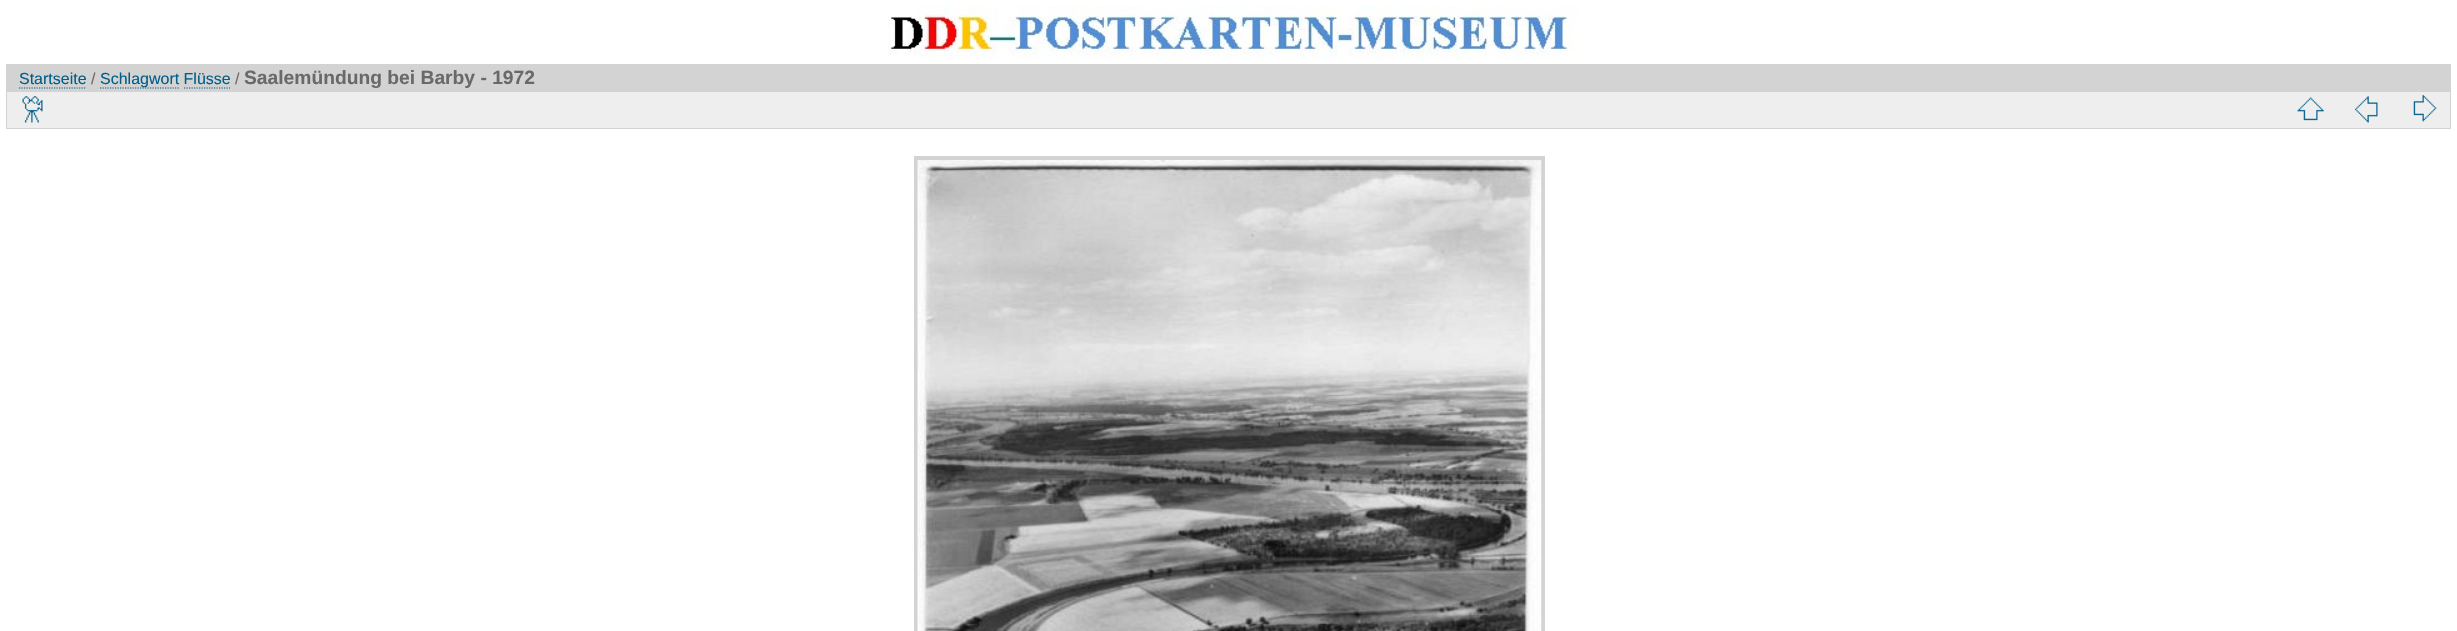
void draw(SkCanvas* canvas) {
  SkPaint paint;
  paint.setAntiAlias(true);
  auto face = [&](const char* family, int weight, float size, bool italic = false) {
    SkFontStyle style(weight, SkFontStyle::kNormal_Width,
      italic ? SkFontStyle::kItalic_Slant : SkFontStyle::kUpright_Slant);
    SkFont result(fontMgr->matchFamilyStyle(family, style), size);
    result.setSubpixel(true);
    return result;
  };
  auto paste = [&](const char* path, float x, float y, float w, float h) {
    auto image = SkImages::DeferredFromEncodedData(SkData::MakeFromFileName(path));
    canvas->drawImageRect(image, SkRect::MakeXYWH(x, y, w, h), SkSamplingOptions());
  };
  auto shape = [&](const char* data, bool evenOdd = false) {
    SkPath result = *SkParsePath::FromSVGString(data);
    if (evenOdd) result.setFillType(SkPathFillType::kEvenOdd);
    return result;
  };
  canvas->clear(0xffffffff);
  paste("img/1.png", 888, 6, 690, 54);
  paint.setColor(0xffd3d3d3);
  canvas->drawRect(SkRect::MakeXYWH(6, 64, 2445, 27), paint);
  paint.setStroke(true);
  paint.setStrokeWidth(1.2f);
  paint.setColor(0xff005e89);
  paint.setPathEffect(SkDashPathEffect::Make({{1.25f, 1.25f}}, 0));
  canvas->drawPath(shape("M19 88H86"), paint);
  paint.setPathEffect(nullptr);
  paint.setPathEffect(SkDashPathEffect::Make({{1.25f, 1.25f}}, 0));
  canvas->drawPath(shape("M100 88H179"), paint);
  paint.setPathEffect(nullptr);
  paint.setPathEffect(SkDashPathEffect::Make({{1.25f, 1.25f}}, 0));
  canvas->drawPath(shape("M184 88H230"), paint);
  paint.setPathEffect(nullptr);
  paint.setStroke(false);
  paint.setColor(0xffeeeeee);
  canvas->drawRect(SkRect::MakeXYWH(6.5f, 91.5f, 2444, 37), paint);
  paint.setStroke(true);
  paint.setStrokeWidth(1);
  paint.setColor(0xffd3d3d3);
  canvas->drawRect(SkRect::MakeXYWH(6.5f, 91.5f, 2444, 37), paint);
  paste("img/2.png", 22, 96, 21, 27);
  paste("img/3.png", 2297, 97, 27, 24);
  paste("img/4.png", 2354, 96, 24, 27);
  paste("img/5.png", 2413, 94, 24, 28);
  paint.setStrokeWidth(4);
  canvas->drawRect(SkRect::MakeXYWH(916, 158, 627, 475), paint);
  paste("img/6.png", 917, 160, 625, 471);
  auto f0 = face("Liberation Sans", 400, 16);
  paint.setStroke(false);
  paint.setColor(0xff005e89);
  canvas->drawString("Startseite", 19, 84, f0, paint);
  paint.setColor(0xff696969);
  canvas->drawString("/", 91, 84, f0, paint);
  paint.setColor(0xff005e89);
  canvas->drawString("Schlagwort Flüsse", 100, 84, f0, paint);
  paint.setColor(0xff696969);
  canvas->drawString("/", 235, 84, f0, paint);
  auto f1 = face("Liberation Sans", 700, 19.25f);
  canvas->drawString("Saalemündung bei Barby - 1972", 244, 84, f1, paint);
}
